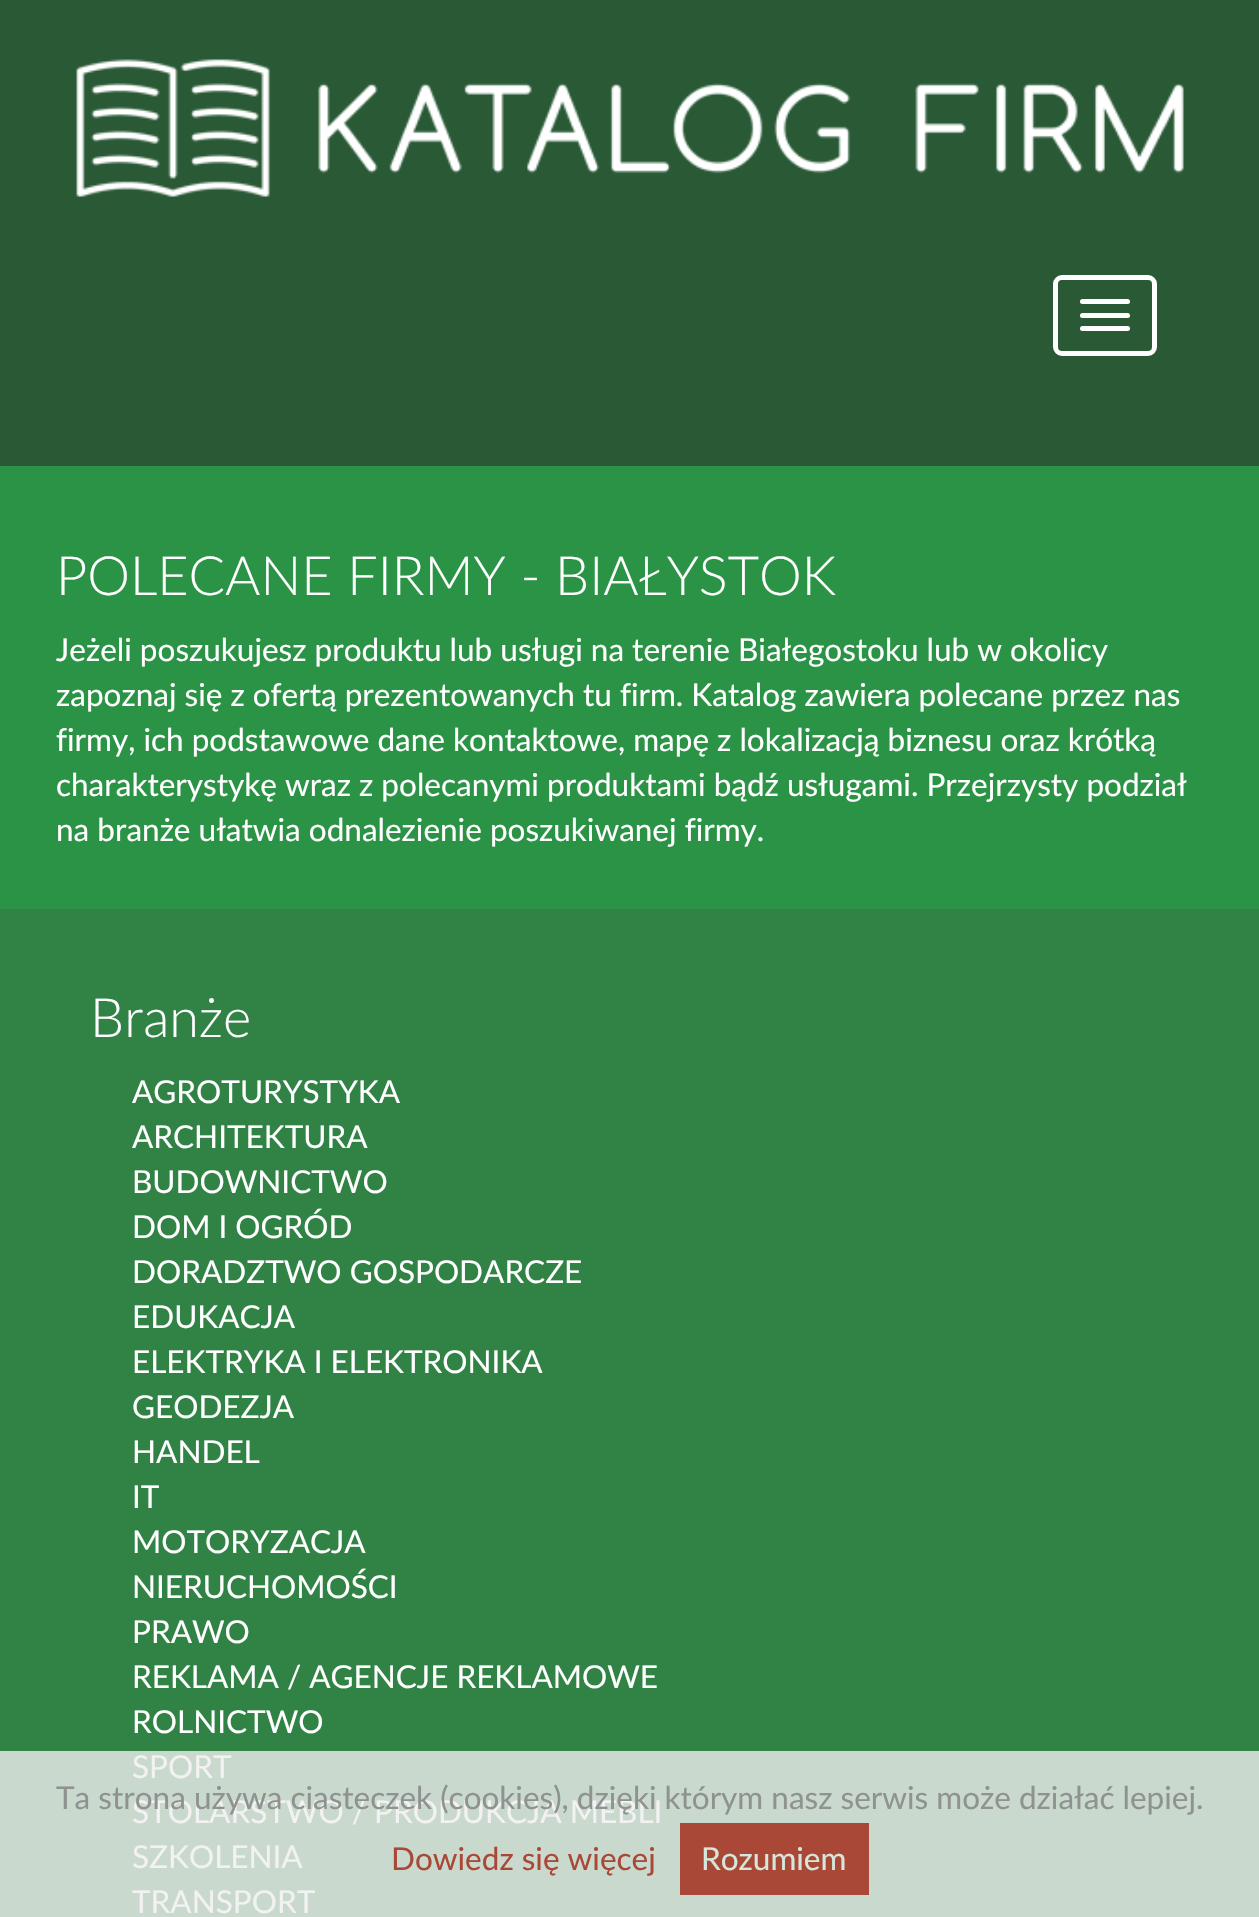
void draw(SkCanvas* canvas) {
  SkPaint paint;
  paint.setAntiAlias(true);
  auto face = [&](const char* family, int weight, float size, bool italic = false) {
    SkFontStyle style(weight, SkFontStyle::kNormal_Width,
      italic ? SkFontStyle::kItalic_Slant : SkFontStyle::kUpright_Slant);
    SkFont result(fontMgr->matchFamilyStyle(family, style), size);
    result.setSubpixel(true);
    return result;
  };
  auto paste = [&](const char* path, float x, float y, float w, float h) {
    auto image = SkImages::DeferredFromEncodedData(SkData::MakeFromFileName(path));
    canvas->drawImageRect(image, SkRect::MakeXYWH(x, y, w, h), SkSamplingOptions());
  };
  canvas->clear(0xff295935);
  paste("img/1.png", 76, 59, 1108, 138);
  paint.setStroke(true);
  paint.setStrokeWidth(5);
  paint.setColor(0xffffffff);
  canvas->drawRoundRect(SkRect::MakeXYWH(1055.5f, 277.5f, 99, 76), 6.5f, 6.5f, paint);
  paint.setStroke(false);
  canvas->drawRoundRect(SkRect::MakeXYWH(1080, 299, 50, 5), 2.5f, 2.5f, paint);
  canvas->drawRoundRect(SkRect::MakeXYWH(1080, 313, 50, 5), 2.5f, 2.5f, paint);
  canvas->drawRoundRect(SkRect::MakeXYWH(1080, 326, 50, 5), 2.5f, 2.5f, paint);
  {
    const struct { float x, y, w, h; SkColor color; } items[] = {
      {0, 466, 1259, 443, 0xff2a9345},
      {0, 909, 1259, 842, 0xff308245},
      {0, 1751, 1259, 166, 0xffc9d9cd},
      {680, 1823, 189, 72, 0xffa94837},
    };
    for (auto [x, y, w, h, color] : items) {
      paint.setColor(color);
      canvas->drawRect(SkRect::MakeXYWH(x, y, w, h), paint);
    }
  }
  auto f0 = face("Lato", 300, 54);
  paint.setColor(0xffffffff);
  canvas->drawString("POLECANE FIRMY - BIAŁYSTOK", 56, 595, f0, paint);
  auto f1 = face("Lato", 400, 31.5f);
  {
    const struct { const char* s; float x, y; } items[] = {
      {"Jeżeli poszukujesz produktu lub usługi na terenie Białegostoku lub w okolicy", 56, 661},
      {"zapoznaj się z ofertą prezentowanych tu firm. Katalog zawiera polecane przez nas", 56, 706},
      {"firmy, ich podstawowe dane kontaktowe, mapę z lokalizacją biznesu oraz krótką", 56, 751},
      {"charakterystykę wraz z polecanymi produktami bądź usługami. Przejrzysty podział", 56, 796},
      {"na branże ułatwia odnalezienie poszukiwanej firmy.", 56, 841},
    };
    for (auto [s, x, y] : items) {
      canvas->drawString(s, x, y, f1, paint);
    }
  }
  canvas->drawString("Branże", 90, 1037, f0, paint);
  {
    const struct { const char* s; float x, y; } items[] = {
      {"AGROTURYSTYKA", 132, 1103},
      {"ARCHITEKTURA", 132, 1148},
      {"BUDOWNICTWO", 132, 1193},
      {"DOM I OGRÓD", 132, 1238},
      {"DORADZTWO GOSPODARCZE", 132, 1283},
      {"EDUKACJA", 132, 1328},
      {"ELEKTRYKA I ELEKTRONIKA", 132, 1373},
      {"GEODEZJA", 132, 1418},
      {"HANDEL", 132, 1463},
      {"IT", 132, 1508},
      {"MOTORYZACJA", 132, 1553},
      {"NIERUCHOMOŚCI", 132, 1598},
      {"PRAWO", 132, 1643},
      {"REKLAMA / AGENCJE REKLAMOWE", 132, 1688},
      {"ROLNICTWO", 132, 1733},
    };
    for (auto [s, x, y] : items) {
      canvas->drawString(s, x, y, f1, paint);
    }
  }
  paint.setColor(0xfff2f2f2);
  {
    const struct { const char* s; float x, y; } items[] = {
      {"SPORT", 132, 1778},
      {"STOLARSTWO / PRODUKCJA MEBLI", 132, 1823},
      {"SZKOLENIA", 132, 1868},
      {"TRANSPORT", 132, 1913},
    };
    for (auto [s, x, y] : items) {
      canvas->drawString(s, x, y, f1, paint);
    }
  }
  paint.setColor(0xff8f9290);
  canvas->drawString("Ta strona używa ciasteczek (cookies), dzięki którym nasz serwis może działać lepiej.", 56, 1809, f1, paint);
  paint.setColor(0xffa94837);
  canvas->drawString("Dowiedz się więcej", 391, 1870, f1, paint);
  paint.setColor(0xffd6e6da);
  canvas->drawString("Rozumiem", 701, 1870, f1, paint);
}
